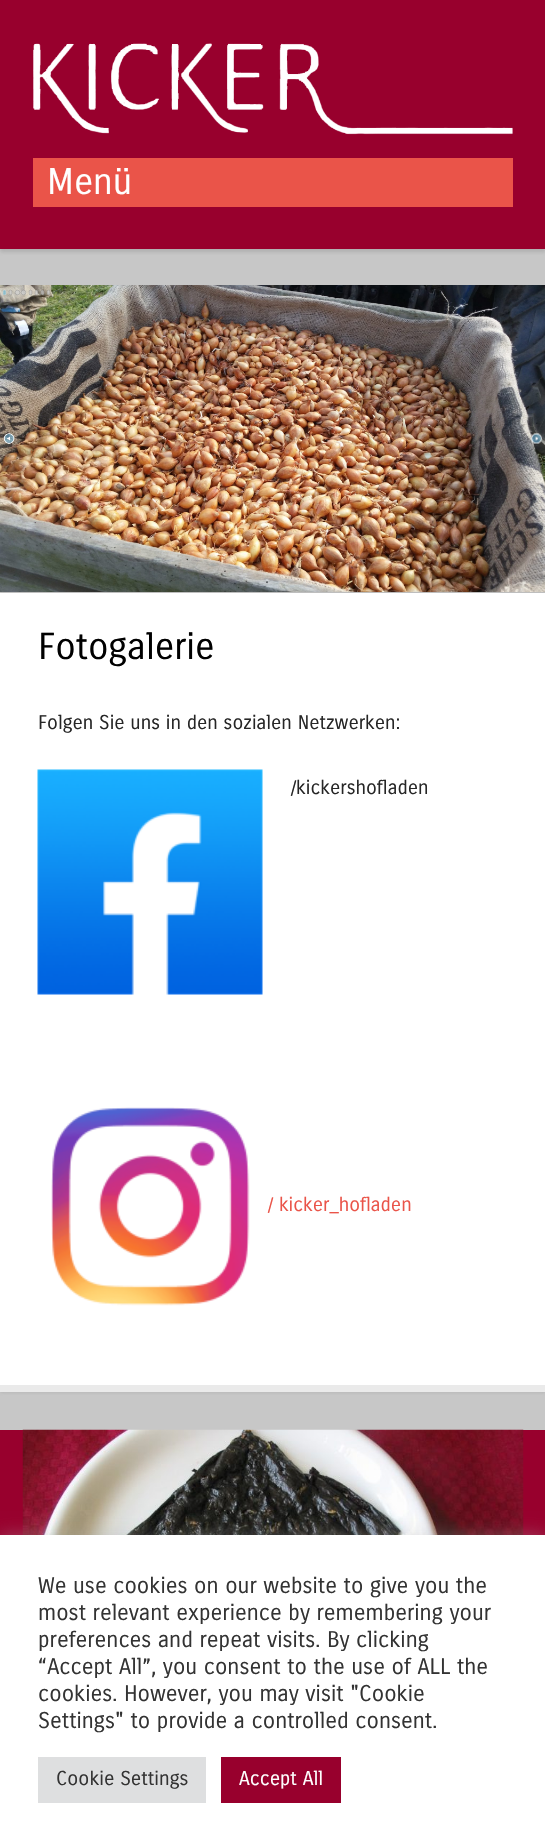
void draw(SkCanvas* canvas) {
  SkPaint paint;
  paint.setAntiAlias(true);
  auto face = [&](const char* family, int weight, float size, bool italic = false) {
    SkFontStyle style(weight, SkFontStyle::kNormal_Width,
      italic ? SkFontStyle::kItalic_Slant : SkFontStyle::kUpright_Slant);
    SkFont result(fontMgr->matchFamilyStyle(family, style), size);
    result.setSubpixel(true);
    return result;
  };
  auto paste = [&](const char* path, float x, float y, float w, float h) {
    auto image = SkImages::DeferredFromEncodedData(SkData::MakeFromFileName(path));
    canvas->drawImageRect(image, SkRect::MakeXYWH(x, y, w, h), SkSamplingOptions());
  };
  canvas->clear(0xffc7c7c7);
  paint.setColor(0x40646464);
  paint.setMaskFilter(SkMaskFilter::MakeBlur(kNormal_SkBlurStyle, 2));
  canvas->drawRect(SkRect::MakeXYWH(0, 3, 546, 249), paint);
  paint.setMaskFilter(nullptr);
  paint.setColor(0xff98002d);
  canvas->drawRect(SkRect::MakeXYWH(0, 0, 545, 249), paint);
  paste("img/1.png", 33, 43, 480, 92);
  paint.setColor(0xffea5449);
  canvas->drawRect(SkRect::MakeXYWH(33, 158, 480, 49), paint);
  paint.setColor(0x40646464);
  paint.setMaskFilter(SkMaskFilter::MakeBlur(kNormal_SkBlurStyle, 2));
  canvas->drawRect(SkRect::MakeXYWH(0, 593, 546, 799), paint);
  paint.setMaskFilter(nullptr);
  paste("img/2.png", 0, 285, 545, 307);
  paint.setColor(0xb374b8cf);
  canvas->drawRoundRect(SkRect::MakeXYWH(3, 290, 3, 5), 1.5f, 1.5f, paint);
  paint.setStroke(true);
  paint.setStrokeWidth(0.3f);
  paint.setColor(0xb3ffffff);
  canvas->drawRoundRect(SkRect::MakeXYWH(3.15f, 290.15f, 2.7f, 4.7f), 1.35f, 1.35f, paint);
  paint.setStroke(false);
  paint.setColor(0xb3cccccc);
  canvas->drawRoundRect(SkRect::MakeXYWH(9, 290, 3, 5), 1.5f, 1.5f, paint);
  paint.setStroke(true);
  paint.setColor(0xb34b4b4b);
  canvas->drawRoundRect(SkRect::MakeXYWH(9.15f, 290.15f, 2.7f, 4.7f), 1.35f, 1.35f, paint);
  paint.setStroke(false);
  paint.setColor(0xb3cccccc);
  canvas->drawCircle(17.5f, 292.5f, 2.5f, paint);
  paint.setStroke(true);
  paint.setColor(0xb34b4b4b);
  canvas->drawCircle(17.5f, 292.5f, 2.35f, paint);
  paint.setStroke(false);
  paint.setColor(0xb3cccccc);
  canvas->drawCircle(23.5f, 292.5f, 2.5f, paint);
  paint.setStroke(true);
  paint.setColor(0xb34b4b4b);
  canvas->drawCircle(23.5f, 292.5f, 2.35f, paint);
  paint.setStroke(false);
  paint.setColor(0xb3cccccc);
  canvas->drawRoundRect(SkRect::MakeXYWH(29, 290, 3, 5), 1.5f, 1.5f, paint);
  paint.setStroke(true);
  paint.setColor(0xb34b4b4b);
  canvas->drawRoundRect(SkRect::MakeXYWH(29.15f, 290.15f, 2.7f, 4.7f), 1.35f, 1.35f, paint);
  paint.setStroke(false);
  paint.setColor(0xb3cccccc);
  canvas->drawRoundRect(SkRect::MakeXYWH(35, 290, 3, 5), 1.5f, 1.5f, paint);
  paint.setStroke(true);
  paint.setColor(0xb34b4b4b);
  canvas->drawRoundRect(SkRect::MakeXYWH(35.15f, 290.15f, 2.7f, 4.7f), 1.35f, 1.35f, paint);
  paint.setStroke(false);
  paint.setColor(0xb3cccccc);
  canvas->drawRoundRect(SkRect::MakeXYWH(41, 290, 3, 5), 1.5f, 1.5f, paint);
  paint.setStroke(true);
  paint.setColor(0xb34b4b4b);
  canvas->drawRoundRect(SkRect::MakeXYWH(41.15f, 290.15f, 2.7f, 4.7f), 1.35f, 1.35f, paint);
  paint.setStroke(false);
  paint.setColor(0xb3cccccc);
  canvas->drawRoundRect(SkRect::MakeXYWH(47, 290, 3, 5), 1.5f, 1.5f, paint);
  paint.setStroke(true);
  paint.setColor(0xb34b4b4b);
  canvas->drawRoundRect(SkRect::MakeXYWH(47.15f, 290.15f, 2.7f, 4.7f), 1.35f, 1.35f, paint);
  paste("img/3.png", 3, 433, 14, 11);
  paste("img/4.png", 531, 433, 11, 13);
  paint.setStroke(false);
  paint.setColor(0xffffffff);
  canvas->drawRect(SkRect::MakeXYWH(0, 593, 545, 792), paint);
  paint.setColor(0xffeaeaea);
  canvas->drawRect(SkRect::MakeXYWH(0, 1385, 545, 7), paint);
  paste("img/5.png", 37, 769, 226, 226);
  paste("img/6.png", 51, 1107, 199, 199);
  paint.setColor(0xff98002d);
  canvas->drawRect(SkRect::MakeXYWH(0, 1430, 545, 105), paint);
  paste("img/7.png", 22, 1429, 502, 106);
  paint.setColor(0x4dacabab);
  paint.setMaskFilter(SkMaskFilter::MakeBlur(kNormal_SkBlurStyle, 7.5f));
  canvas->drawRect(SkRect::MakeXYWH(0, 1533, 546, 314), paint);
  paint.setMaskFilter(nullptr);
  {
    const struct { float x, y, w, h; SkColor color; } items[] = {
      {0, 1535, 545, 313, 0xffffffff},
      {38, 1757, 168, 46, 0xffdedfe0},
      {221, 1757, 120, 46, 0xff98002d},
    };
    for (auto [x, y, w, h, color] : items) {
      paint.setColor(color);
      canvas->drawRect(SkRect::MakeXYWH(x, y, w, h), paint);
    }
  }
  auto f0 = face("Carrois Gothic", 400, 36);
  paint.setColor(0xffffffff);
  canvas->drawString("Menü", 47, 194, f0, paint);
  auto f1 = face("Carrois Gothic", 400, 36.5f);
  paint.setColor(0xff000000);
  canvas->drawString("Fotogalerie", 38, 659, f1, paint);
  auto f2 = face("Carrois Gothic", 400, 19.25f);
  paint.setColor(0xff262626);
  canvas->drawString("Folgen Sie uns in den sozialen Netzwerken:", 38, 729, f2, paint);
  canvas->drawString("/kickershofladen", 291, 794, f2, paint);
  paint.setColor(0xffea5449);
  canvas->drawString("/ kicker_hofladen", 268, 1211, f2, paint);
  auto f3 = face("Carrois Gothic", 400, 22);
  paint.setColor(0xff333333);
  {
    const struct { const char* s; float x, y; } items[] = {
      {"We use cookies on our website to give you the", 38, 1593},
      {"most relevant experience by remembering your", 38, 1620},
      {"preferences and repeat visits. By clicking", 38, 1647},
      {"“Accept All”, you consent to the use of ALL the", 38, 1674},
      {"cookies. However, you may visit \"Cookie", 38, 1701},
      {"Settings\" to provide a controlled consent.", 38, 1728},
    };
    for (auto [s, x, y] : items) {
      canvas->drawString(s, x, y, f3, paint);
    }
  }
  auto f4 = face("Carrois Gothic", 400, 19.5f);
  canvas->drawString("Cookie Settings", 56, 1785, f4, paint);
  paint.setColor(0xffffffff);
  canvas->drawString("Accept All", 239, 1785, f4, paint);
}
